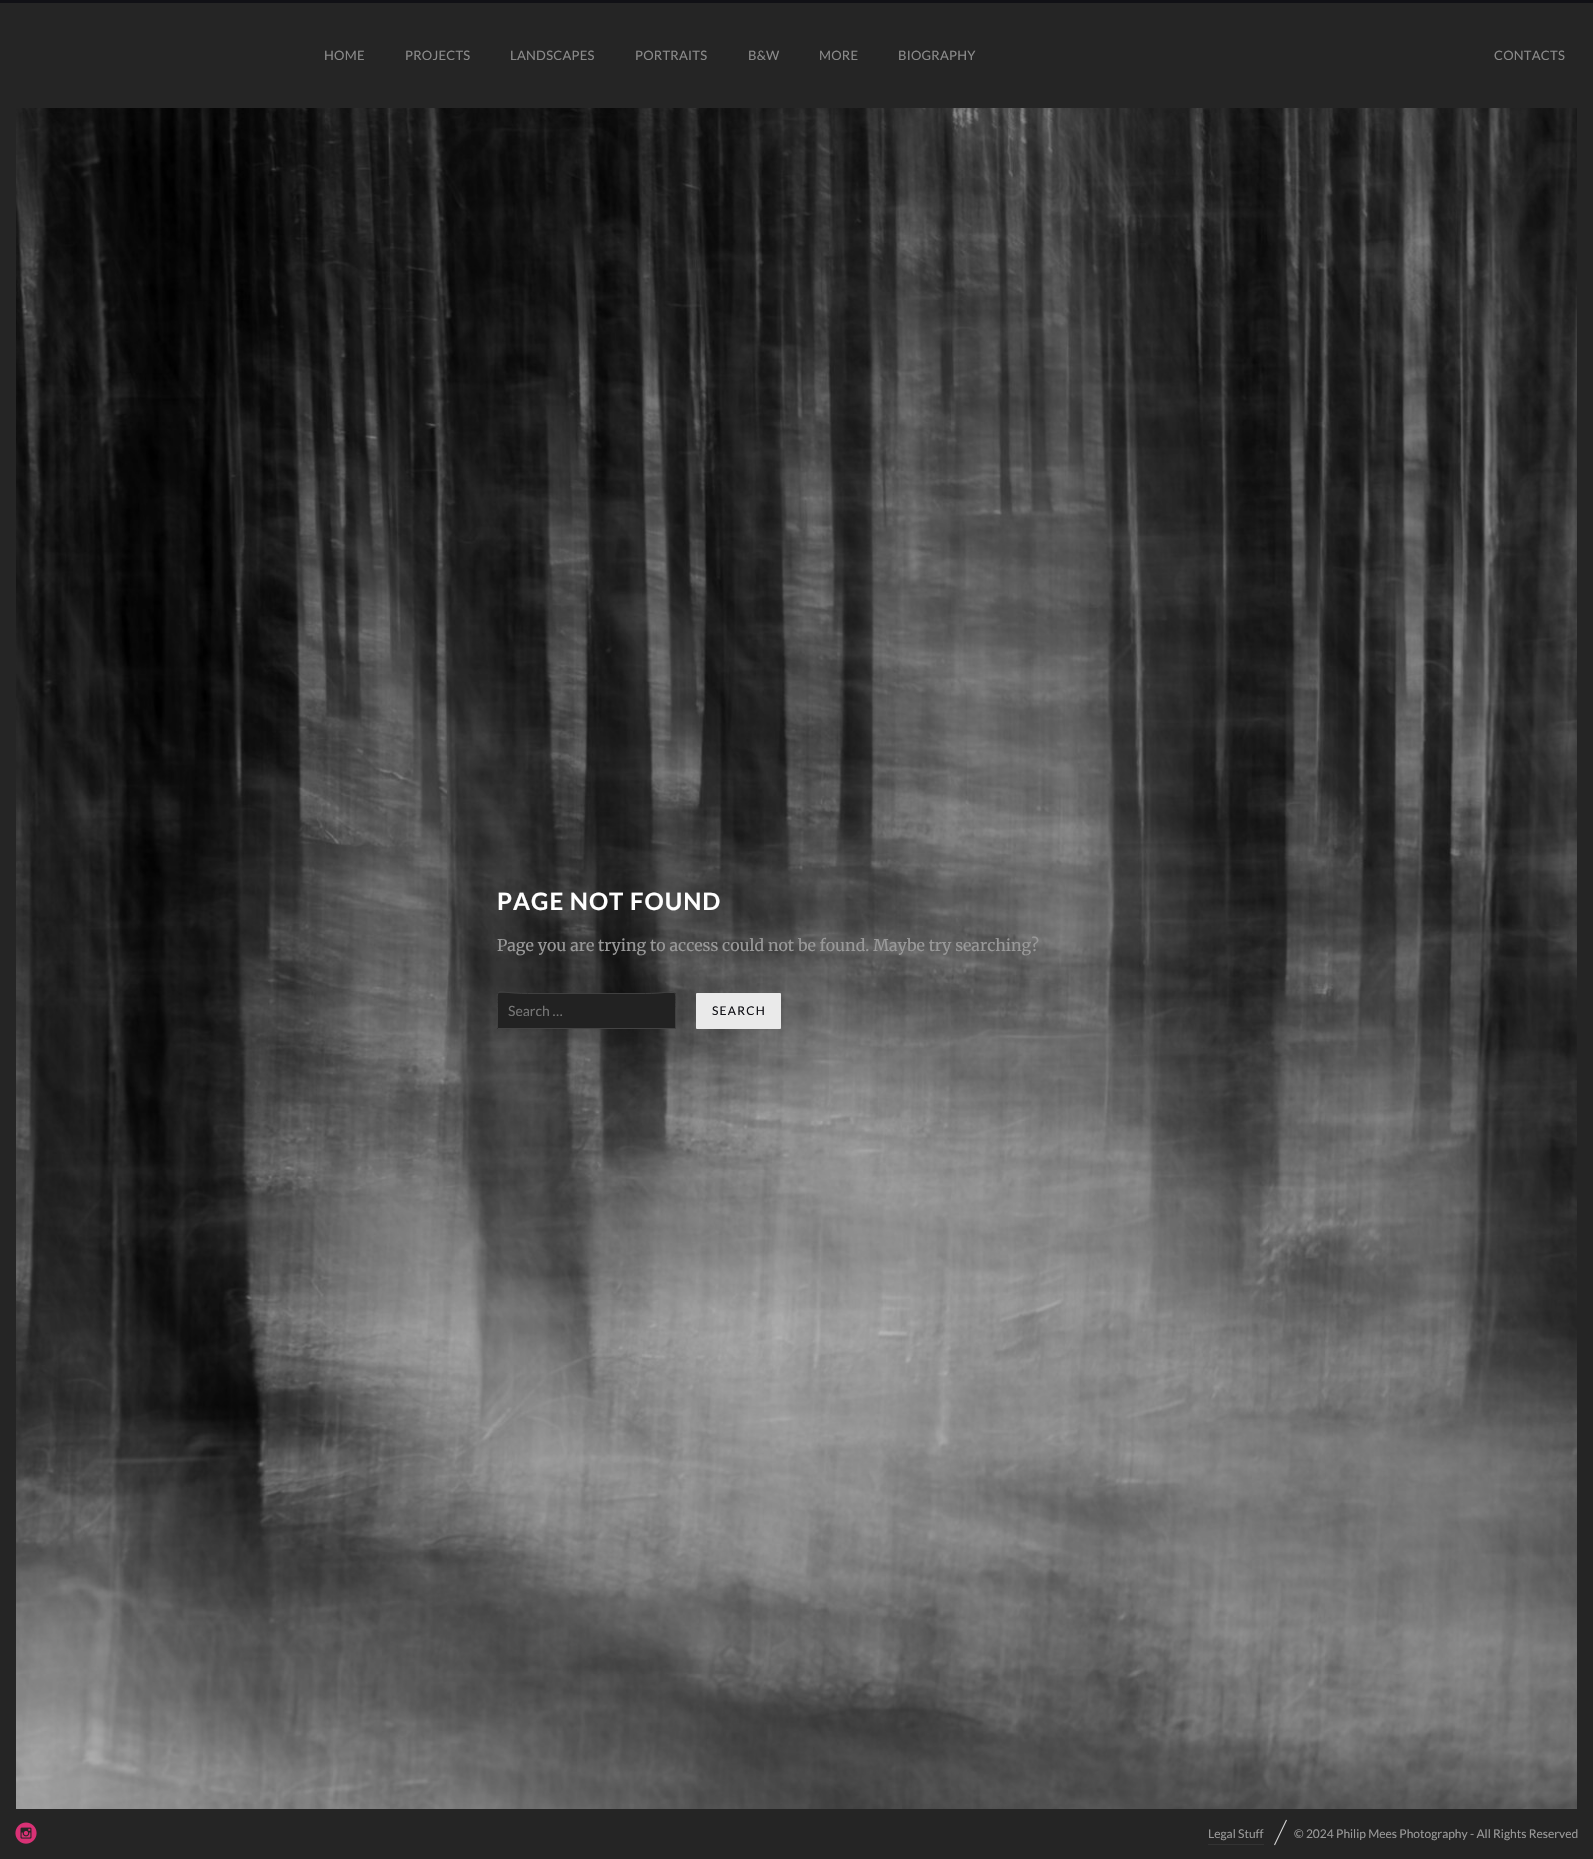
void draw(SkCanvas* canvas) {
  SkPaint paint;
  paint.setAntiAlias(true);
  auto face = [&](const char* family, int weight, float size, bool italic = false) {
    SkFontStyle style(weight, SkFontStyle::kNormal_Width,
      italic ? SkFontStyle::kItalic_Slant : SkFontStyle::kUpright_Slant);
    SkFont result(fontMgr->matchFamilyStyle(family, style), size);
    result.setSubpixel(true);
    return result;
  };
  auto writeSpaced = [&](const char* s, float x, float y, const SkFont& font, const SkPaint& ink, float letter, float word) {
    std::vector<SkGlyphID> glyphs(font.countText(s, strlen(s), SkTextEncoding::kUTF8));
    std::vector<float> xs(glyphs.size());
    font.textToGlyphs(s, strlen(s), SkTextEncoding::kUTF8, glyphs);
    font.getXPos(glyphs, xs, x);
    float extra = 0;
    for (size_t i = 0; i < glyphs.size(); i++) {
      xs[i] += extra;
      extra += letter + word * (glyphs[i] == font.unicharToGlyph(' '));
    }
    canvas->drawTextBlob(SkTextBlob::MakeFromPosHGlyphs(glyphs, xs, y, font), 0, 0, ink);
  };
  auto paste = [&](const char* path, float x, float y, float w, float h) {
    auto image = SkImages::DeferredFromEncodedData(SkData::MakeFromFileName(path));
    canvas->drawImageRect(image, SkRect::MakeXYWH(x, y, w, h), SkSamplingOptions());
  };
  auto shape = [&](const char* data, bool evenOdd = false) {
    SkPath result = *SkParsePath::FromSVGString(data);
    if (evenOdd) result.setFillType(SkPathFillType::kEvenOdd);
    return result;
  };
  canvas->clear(0xff252525);
  paint.setColor(0xff111116);
  canvas->drawRect(SkRect::MakeXYWH(0, 0, 1593, 3), paint);
  paste("img/1.png", 16, 108, 1561, 1701);
  paint.setColor(0xff222222);
  canvas->drawRoundRect(SkRect::MakeXYWH(497, 993, 179, 36), 1, 1, paint);
  paint.setColor(0xff444444);
  canvas->drawRect(SkRect::MakeXYWH(498, 1028, 178, 1), paint);
  paint.setStroke(true);
  paint.setStrokeWidth(1);
  paint.setColor(0xff404040);
  canvas->drawPath(shape("M497.5 1028.5V1011C497.5 984 492.5 993.5 527.5 993.5H645.5C680.5 993.5 675.5 984 675.5 1011V1028.5"), paint);
  paint.setStroke(false);
  paint.setColor(0xffeaeaea);
  canvas->drawRoundRect(SkRect::MakeXYWH(696, 993, 85, 36), 1, 1, paint);
  paste("img/2.png", 15, 1822, 22, 22);
  paint.setColor(0xff333333);
  canvas->drawRect(SkRect::MakeXYWH(1208, 1844, 56, 1), paint);
  paste("img/3.png", 1274, 1819, 13, 27);
  auto f0 = face("Lato", 400, 13);
  paint.setColor(0xff8a8a8a);
  {
    const struct { const char* s; float x, y; } items[] = {
      {"HOME", 324, 60},
      {"PROJECTS", 405, 60},
      {"LANDSCAPES", 510, 60},
      {"PORTRAITS", 635, 60},
      {"B&W", 748, 60},
      {"MORE", 819, 60},
      {"BIOGRAPHY", 898, 60},
      {"CONTACTS", 1494, 60},
    };
    for (auto [s, x, y] : items) {
      writeSpaced(s, x, y, f0, paint, 0.25f, 0);
    }
  }
  auto f1 = face("Lato", 700, 24);
  paint.setColor(0xffffffff);
  writeSpaced("PAGE NOT FOUND", 497, 910, f1, paint, 1, 0);
  auto f2 = face("Merriweather", 300, 16);
  paint.setColor(0xff999999);
  canvas->drawString("Page you are trying to access could not be found. Maybe try searching?", 497, 951, f2, paint);
  auto f3 = face("Lato", 400, 14);
  paint.setColor(0xff757575);
  canvas->drawString("Search …", 508, 1016, f3, paint);
  auto f4 = face("Lato", 400, 12);
  paint.setColor(0xff111116);
  writeSpaced("SEARCH", 712, 1015, f4, paint, 1.25f, 0);
  paint.setColor(0xff999999);
  canvas->drawString("Legal Stuff", 1208, 1838, f4, paint);
  canvas->drawString("© 2024 Philip Mees Photography - All Rights Reserved", 1294, 1838, f4, paint);
}
